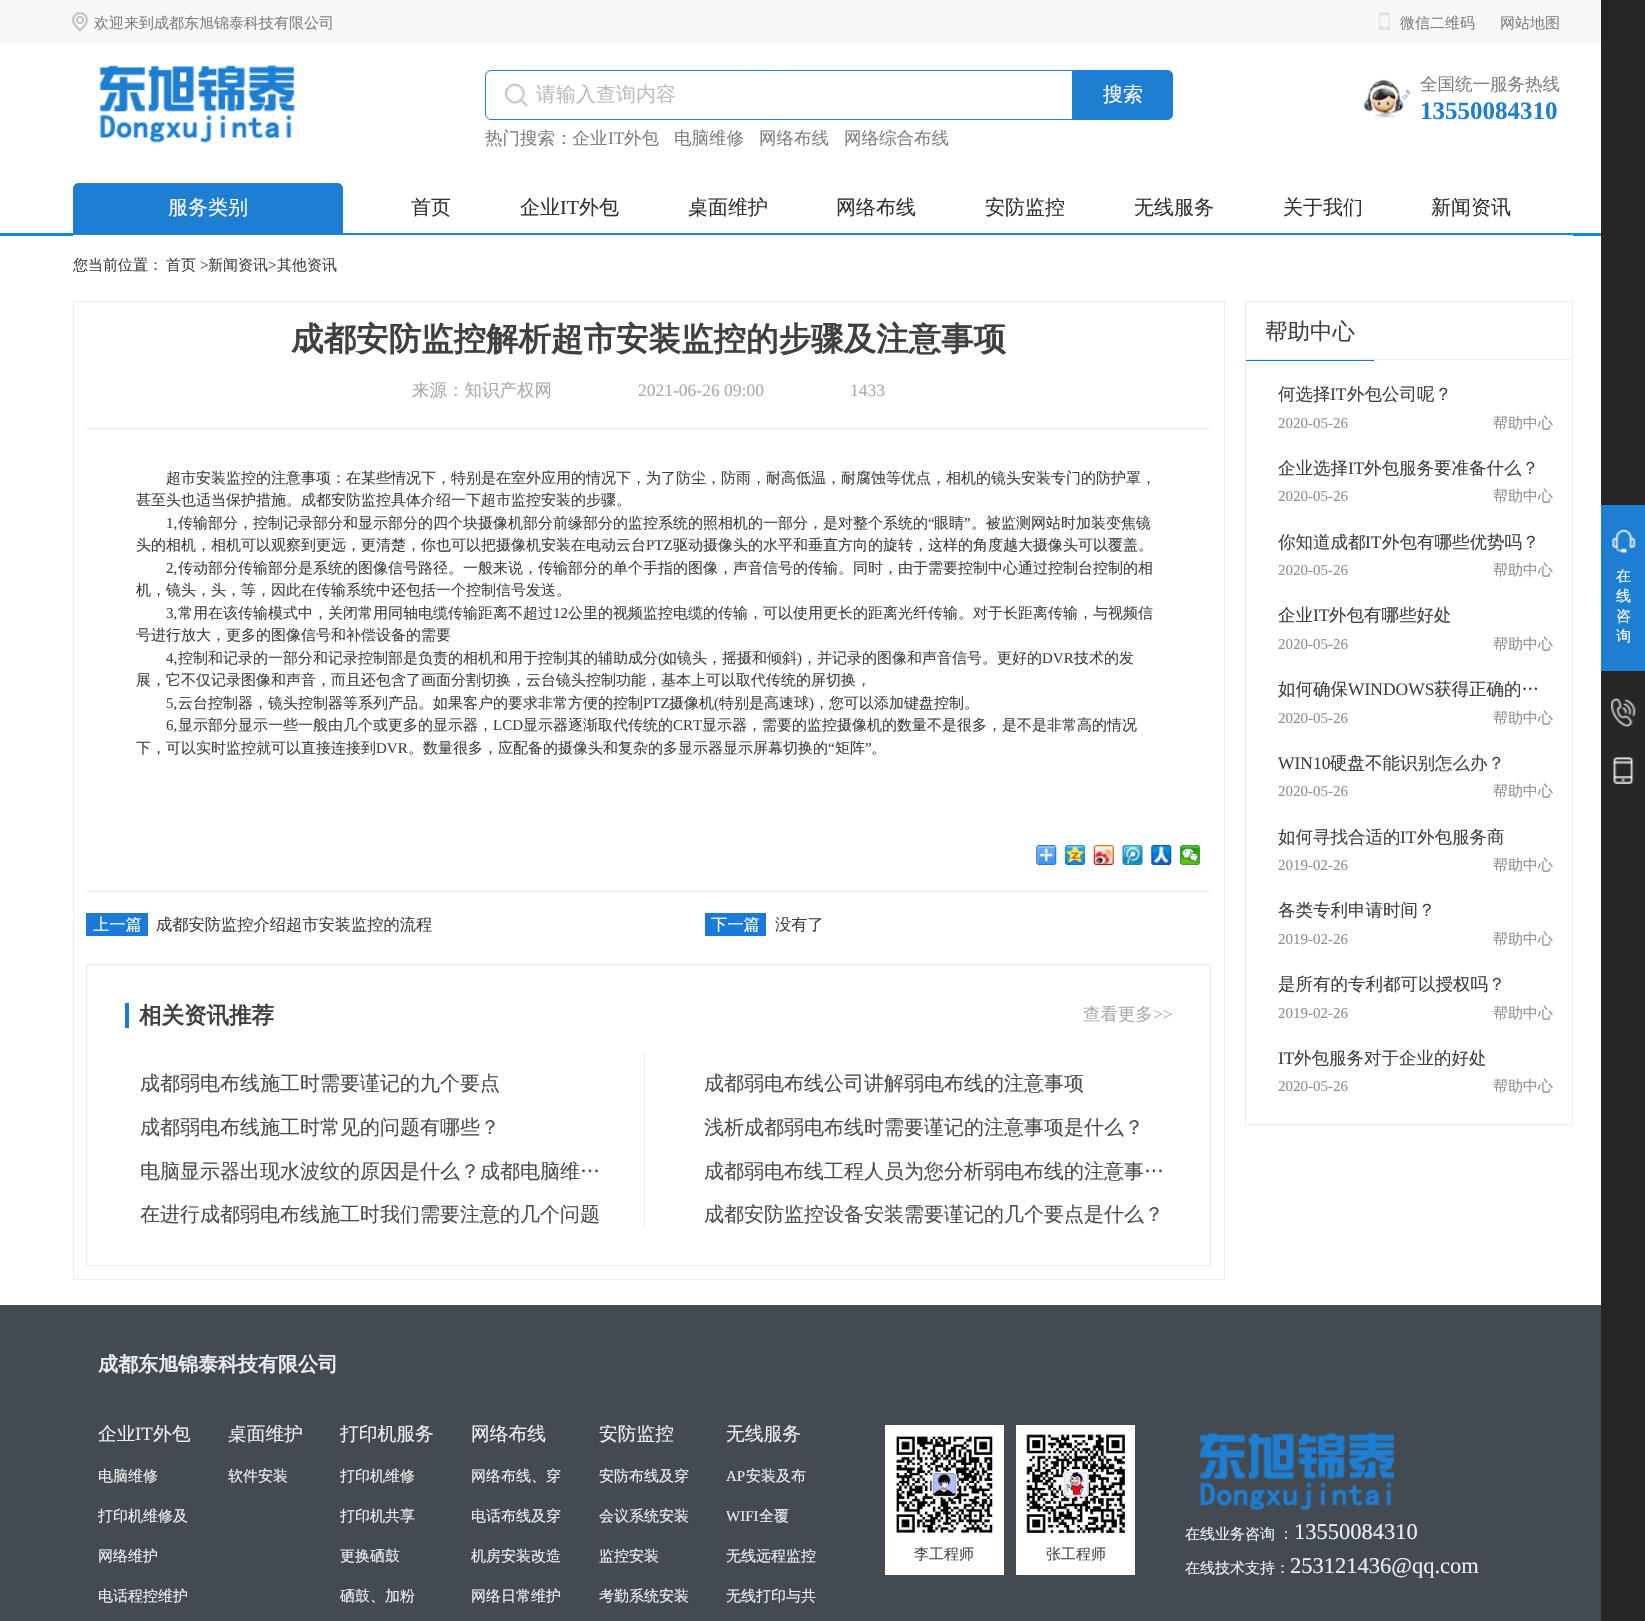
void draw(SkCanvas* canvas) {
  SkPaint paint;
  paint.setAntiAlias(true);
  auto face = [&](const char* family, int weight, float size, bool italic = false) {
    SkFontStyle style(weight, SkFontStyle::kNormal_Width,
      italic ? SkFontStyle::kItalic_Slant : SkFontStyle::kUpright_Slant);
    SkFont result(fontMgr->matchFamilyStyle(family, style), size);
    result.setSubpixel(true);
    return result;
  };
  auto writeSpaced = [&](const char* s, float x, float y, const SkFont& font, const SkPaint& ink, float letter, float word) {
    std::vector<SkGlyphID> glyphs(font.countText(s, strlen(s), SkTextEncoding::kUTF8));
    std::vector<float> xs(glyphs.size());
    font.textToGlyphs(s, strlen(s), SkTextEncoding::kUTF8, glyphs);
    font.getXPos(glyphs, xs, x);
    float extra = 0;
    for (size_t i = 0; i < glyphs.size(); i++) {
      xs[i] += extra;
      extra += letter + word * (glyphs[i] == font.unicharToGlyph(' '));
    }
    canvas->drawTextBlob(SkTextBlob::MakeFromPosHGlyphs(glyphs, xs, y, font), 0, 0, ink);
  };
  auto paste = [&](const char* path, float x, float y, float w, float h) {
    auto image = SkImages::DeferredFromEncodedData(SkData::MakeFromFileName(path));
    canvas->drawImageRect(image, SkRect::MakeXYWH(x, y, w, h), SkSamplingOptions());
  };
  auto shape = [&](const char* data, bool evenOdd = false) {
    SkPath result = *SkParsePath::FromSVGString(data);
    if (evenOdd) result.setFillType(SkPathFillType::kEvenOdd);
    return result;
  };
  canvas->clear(0xffffffff);
  paint.setColor(0xff1584e4);
  canvas->drawRect(SkRect::MakeXYWH(0, 233, 1601, 3), paint);
  paint.setColor(0xfff8f8f8);
  canvas->drawRect(SkRect::MakeXYWH(0, 0, 1601, 45), paint);
  paste("img/1.png", 72, 12, 16, 20);
  paste("img/2.png", 1378, 12, 12, 18);
  paste("img/3.png", 99, 64, 197, 79);
  paste("img/4.png", 505, 83, 23, 24);
  paint.setStroke(true);
  paint.setStrokeWidth(1);
  paint.setColor(0xff1d7ed2);
  canvas->drawPath(shape("M491 70.5H1072.5V119.5H491C488 119.5 485.5 117 485.5 114V76C485.5 73 488 70.5 491 70.5Z"), paint);
  paint.setStroke(false);
  canvas->drawPath(shape("M1073 70H1167C1170.5 70 1173 72.5 1173 76V114C1173 117.5 1170.5 120 1167 120H1073Z"), paint);
  paste("img/5.png", 1363, 79, 47, 40);
  canvas->drawPath(shape("M79 183H337C340.5 183 343 185.5 343 189V234H73V189C73 185.5 75.5 183 79 183Z"), paint);
  paint.setColor(0xffffffff);
  canvas->drawRect(SkRect::MakeXYWH(73, 235, 1500, 1), paint);
  paint.setStroke(true);
  paint.setColor(0xffececec);
  canvas->drawRect(SkRect::MakeXYWH(73.5f, 301.5f, 1151, 978), paint);
  paint.setStroke(false);
  canvas->drawRect(SkRect::MakeXYWH(86, 428, 1125, 1), paint);
  canvas->drawRect(SkRect::MakeXYWH(86, 891, 1125, 1), paint);
  paste("img/6.png", 1036, 845, 21, 20);
  paste("img/7.png", 1065, 845, 20, 20);
  paste("img/8.png", 1093, 845, 21, 20);
  paste("img/9.png", 1122, 845, 21, 20);
  paste("img/10.png", 1151, 845, 21, 20);
  paste("img/11.png", 1180, 845, 20, 20);
  paint.setColor(0xff1a79d9);
  canvas->drawRect(SkRect::MakeXYWH(86, 913, 62, 23), paint);
  canvas->drawRect(SkRect::MakeXYWH(705, 913, 61, 23), paint);
  paint.setStroke(true);
  paint.setColor(0xffececec);
  canvas->drawRect(SkRect::MakeXYWH(86.5f, 964.5f, 1124, 301), paint);
  paint.setStroke(false);
  paint.setColor(0xff1a79d9);
  canvas->drawRect(SkRect::MakeXYWH(125, 1003, 4, 25), paint);
  paint.setColor(0xffececec);
  canvas->drawRect(SkRect::MakeXYWH(644, 1053, 1, 175), paint);
  paint.setStroke(true);
  canvas->drawRect(SkRect::MakeXYWH(1245.5f, 301.5f, 327, 823), paint);
  paint.setStroke(false);
  {
    const struct { float x, y, w, h; SkColor color; } items[] = {
      {1246, 359, 325, 1, 0xffececec},
      {1246, 360, 128, 1, 0xff0f7add},
      {1601, 0, 44, 1621, 0xff262626},
      {1601, 505, 44, 166, 0xff1d7ed2},
    };
    for (auto [x, y, w, h, color] : items) {
      paint.setColor(color);
      canvas->drawRect(SkRect::MakeXYWH(x, y, w, h), paint);
    }
  }
  paste("img/12.png", 1612, 530, 24, 23);
  paste("img/13.png", 1611, 698, 25, 29);
  paste("img/14.png", 1613, 757, 21, 27);
  paint.setColor(0xff434a52);
  canvas->drawRect(SkRect::MakeXYWH(0, 1305, 1601, 316), paint);
  paint.setColor(0xffffffff);
  canvas->drawRect(SkRect::MakeXYWH(885, 1425, 119, 150), paint);
  paste("img/15.png", 896, 1435, 97, 98);
  canvas->drawRect(SkRect::MakeXYWH(1016, 1425, 119, 150), paint);
  paste("img/16.png", 1026, 1434, 100, 100);
  paste("img/17.png", 1199, 1432, 196, 79);
  auto f0 = face("WenQuanYi Zen Hei", 500, 15);
  paint.setColor(0xff808080);
  {
    const struct { const char* s; float x, y; } items[] = {
      {"欢迎来到成都东旭锦泰科技有限公司", 94, 28},
      {"微信二维码", 1400, 28},
      {"网站地图", 1500, 28},
    };
    for (auto [s, x, y] : items) {
      canvas->drawString(s, x, y, f0, paint);
    }
  }
  auto f1 = face("WenQuanYi Zen Hei", 500, 20);
  paint.setColor(0xffbdbdbd);
  canvas->drawString("请输入查询内容", 536, 101, f1, paint);
  paint.setColor(0xffffffff);
  canvas->drawString("搜索", 1103, 101, f1, paint);
  auto f2 = face("WenQuanYi Zen Hei", 500, 17.5f);
  paint.setColor(0xff808080);
  canvas->drawString("热门搜索：企业", 485, 144, f2, paint);
  auto f3 = face("Liberation Serif", 400, 17.5f);
  canvas->drawString("IT", 608, 144, f3, paint);
  {
    const struct { const char* s; float x, y; } items[] = {
      {"外包", 624, 144},
      {"电脑维修", 674, 144},
      {"网络布线", 759, 144},
      {"网络综合布线", 844, 144},
      {"全国统一服务热线", 1420, 90},
    };
    for (auto [s, x, y] : items) {
      canvas->drawString(s, x, y, f2, paint);
    }
  }
  auto f4 = face("Liberation Serif", 700, 25);
  paint.setColor(0xff1d7ed2);
  canvas->drawString("13550084310", 1420, 119, f4, paint);
  paint.setColor(0xffffffff);
  canvas->drawString("服务类别", 168, 214, f1, paint);
  paint.setColor(0xff333333);
  canvas->drawString("首页", 411, 214, f1, paint);
  canvas->drawString("企业", 520, 214, f1, paint);
  auto f5 = face("Liberation Serif", 400, 20);
  canvas->drawString("IT", 560, 214, f5, paint);
  {
    const struct { const char* s; float x, y; } items[] = {
      {"外包", 579, 214},
      {"桌面维护", 688, 214},
      {"网络布线", 836, 214},
      {"安防监控", 985, 214},
      {"无线服务", 1134, 214},
      {"关于我们", 1283, 214},
      {"新闻资讯", 1431, 214},
    };
    for (auto [s, x, y] : items) {
      canvas->drawString(s, x, y, f1, paint);
    }
  }
  paint.setColor(0xff404040);
  canvas->drawString("您当前位置：", 73, 270, f0, paint);
  canvas->drawString("首页", 166, 270, f0, paint);
  auto f6 = face("Liberation Serif", 400, 15);
  canvas->drawString(">", 200, 270, f6, paint);
  canvas->drawString("新闻资讯", 208, 270, f0, paint);
  canvas->drawString(">", 268, 270, f6, paint);
  canvas->drawString("其他资讯", 277, 270, f0, paint);
  auto f7 = face("WenQuanYi Zen Hei", 700, 32.5f);
  canvas->drawString("成都安防监控解析超市安装监控的步骤及注意事项", 291, 350, f7, paint);
  paint.setColor(0xffababab);
  canvas->drawString("来源：知识产权网", 412, 396, f2, paint);
  canvas->drawString("2021-06-26 09:00", 638, 396, f3, paint);
  canvas->drawString("1433", 850, 396, f3, paint);
  paint.setColor(0xff404040);
  canvas->drawString("超市安装监控的注意事项：在某些情况下，特别是在室外应用的情况下，为了防尘，防雨，耐高低温，耐腐蚀等优点，相机的镜头安装专门的防护罩，", 166, 483, f0, paint);
  canvas->drawString("甚至头也适当保护措施。成都安防监控具体介绍一下超市监控安装的步骤。", 136, 505, f0, paint);
  canvas->drawString("1,", 166, 528, f6, paint);
  canvas->drawString("传输部分，控制记录部分和显示部分的四个块摄像机部分前缘部分的监控系统的照相机的一部分，是对整个系统的", 178, 528, f0, paint);
  canvas->drawString("“", 928, 528, f6, paint);
  canvas->drawString("眼睛", 934, 528, f0, paint);
  canvas->drawString("”", 964, 528, f6, paint);
  canvas->drawString("。被监测网站时加装变焦镜", 971, 528, f0, paint);
  canvas->drawString("头的相机，相机可以观察到更远，更清楚，你也可以把摄像机安装在电动云台", 136, 550, f0, paint);
  canvas->drawString("PTZ", 646, 550, f6, paint);
  canvas->drawString("驱动摄像头的水平和垂直方向的旋转，这样的角度越大摄像头可以覆盖。", 673, 550, f0, paint);
  canvas->drawString("2,", 166, 573, f6, paint);
  canvas->drawString("传动部分传输部分是系统的图像信号路径。一般来说，传输部分的单个手指的图像，声音信号的传输。同时，由于需要控制中心通过控制台控制的相", 178, 573, f0, paint);
  canvas->drawString("机，镜头，头，等，因此在传输系统中还包括一个控制信号发送。", 136, 595, f0, paint);
  canvas->drawString("3,", 166, 618, f6, paint);
  canvas->drawString("常用在该传输模式中，关闭常用同轴电缆传输距离不超过", 178, 618, f0, paint);
  canvas->drawString("12", 553, 618, f6, paint);
  canvas->drawString("公里的视频监控电缆的传输，可以使用更长的距离光纤传输。对于长距离传输，与视频信", 568, 618, f0, paint);
  canvas->drawString("号进行放大，更多的图像信号和补偿设备的需要", 136, 640, f0, paint);
  canvas->drawString("4,", 166, 663, f6, paint);
  canvas->drawString("控制和记录的一部分和记录控制部是负责的相机和用于控制其的辅助成分", 178, 663, f0, paint);
  canvas->drawString("(", 658, 663, f6, paint);
  canvas->drawString("如镜头，摇摄和倾斜", 662, 663, f0, paint);
  canvas->drawString(")", 797, 663, f6, paint);
  canvas->drawString("，并记录的图像和声音信号。更好的", 802, 663, f0, paint);
  canvas->drawString("DVR", 1042, 663, f6, paint);
  canvas->drawString("技术的发", 1074, 663, f0, paint);
  canvas->drawString("展，它不仅记录图像和声音，而且还包含了画面分割切换，云台镜头控制功能，基本上可以取代传统的屏切换，", 136, 685, f0, paint);
  canvas->drawString("5,", 166, 708, f6, paint);
  canvas->drawString("云台控制器，镜头控制器等系列产品。如果客户的要求非常方便的控制", 178, 708, f0, paint);
  canvas->drawString("PTZ", 643, 708, f6, paint);
  canvas->drawString("摄像机", 669, 708, f0, paint);
  canvas->drawString("(", 714, 708, f6, paint);
  canvas->drawString("特别是高速球", 719, 708, f0, paint);
  canvas->drawString(")", 809, 708, f6, paint);
  canvas->drawString("，您可以添加键盘控制。", 814, 708, f0, paint);
  canvas->drawString("6,", 166, 730, f6, paint);
  canvas->drawString("显示部分显示一些一般由几个或更多的显示器，", 178, 730, f0, paint);
  canvas->drawString("LCD", 493, 730, f6, paint);
  canvas->drawString("显示器逐渐取代传统的", 523, 730, f0, paint);
  canvas->drawString("CRT", 673, 730, f6, paint);
  canvas->drawString("显示器，需要的监控摄像机的数量不是很多，是不是非常高的情况", 702, 730, f0, paint);
  canvas->drawString("下，可以实时监控就可以直接连接到", 136, 753, f0, paint);
  canvas->drawString("DVR", 376, 753, f6, paint);
  canvas->drawString("。数量很多，应配备的摄像头和复杂的多显示器显示屏幕切换的", 408, 753, f0, paint);
  canvas->drawString("“", 828, 753, f6, paint);
  canvas->drawString("矩阵", 835, 753, f0, paint);
  canvas->drawString("”", 865, 753, f6, paint);
  canvas->drawString("。", 871, 753, f0, paint);
  auto f8 = face("WenQuanYi Zen Hei", 500, 16.25f);
  paint.setColor(0xffffffff);
  canvas->drawString("上一篇", 93, 930, f8, paint);
  paint.setColor(0xff404040);
  canvas->drawString("成都安防监控介绍超市安装监控的流程", 156, 930, f8, paint);
  paint.setColor(0xffffffff);
  canvas->drawString("下一篇", 711, 930, f8, paint);
  paint.setColor(0xff404040);
  canvas->drawString("没有了", 775, 930, f8, paint);
  auto f9 = face("WenQuanYi Zen Hei", 700, 22.5f);
  canvas->drawString("相关资讯推荐", 139, 1023, f9, paint);
  paint.setColor(0xffababab);
  canvas->drawString("查看更多", 1083, 1020, f2, paint);
  canvas->drawString(">>", 1153, 1020, f3, paint);
  paint.setColor(0xff4d4d4d);
  {
    const struct { const char* s; float x, y; } items[] = {
      {"成都弱电布线施工时需要谨记的九个要点", 140, 1090},
      {"成都弱电布线施工时常见的问题有哪些？", 140, 1134},
      {"电脑显示器出现水波纹的原因是什么？成都电脑维…", 140, 1178},
      {"在进行成都弱电布线施工时我们需要注意的几个问题", 140, 1221},
      {"成都弱电布线公司讲解弱电布线的注意事项", 704, 1090},
      {"浅析成都弱电布线时需要谨记的注意事项是什么？", 704, 1134},
      {"成都弱电布线工程人员为您分析弱电布线的注意事…", 704, 1178},
      {"成都安防监控设备安装需要谨记的几个要点是什么？", 704, 1221},
    };
    for (auto [s, x, y] : items) {
      canvas->drawString(s, x, y, f1, paint);
    }
  }
  auto f10 = face("WenQuanYi Zen Hei", 500, 22.5f);
  paint.setColor(0xff404040);
  canvas->drawString("帮助中心", 1265, 339, f10, paint);
  canvas->drawString("何选择", 1278, 400, f2, paint);
  canvas->drawString("IT", 1330, 400, f3, paint);
  canvas->drawString("外包公司呢？", 1347, 400, f2, paint);
  paint.setColor(0xff909090);
  canvas->drawString("2020-05-26", 1278, 428, f6, paint);
  canvas->drawString("帮助中心", 1493, 428, f0, paint);
  paint.setColor(0xff404040);
  canvas->drawString("企业选择", 1278, 474, f2, paint);
  canvas->drawString("IT", 1348, 474, f3, paint);
  canvas->drawString("外包服务要准备什么？", 1364, 474, f2, paint);
  paint.setColor(0xff909090);
  canvas->drawString("2020-05-26", 1278, 501, f6, paint);
  canvas->drawString("帮助中心", 1493, 501, f0, paint);
  paint.setColor(0xff404040);
  canvas->drawString("你知道成都", 1278, 548, f2, paint);
  canvas->drawString("IT", 1365, 548, f3, paint);
  canvas->drawString("外包有哪些优势吗？", 1382, 548, f2, paint);
  paint.setColor(0xff909090);
  canvas->drawString("2020-05-26", 1278, 575, f6, paint);
  canvas->drawString("帮助中心", 1493, 575, f0, paint);
  paint.setColor(0xff404040);
  canvas->drawString("企业", 1278, 621, f2, paint);
  canvas->drawString("IT", 1313, 621, f3, paint);
  canvas->drawString("外包有哪些好处", 1329, 621, f2, paint);
  paint.setColor(0xff909090);
  canvas->drawString("2020-05-26", 1278, 649, f6, paint);
  canvas->drawString("帮助中心", 1493, 649, f0, paint);
  paint.setColor(0xff404040);
  canvas->drawString("如何确保", 1278, 695, f2, paint);
  canvas->drawString("WINDOWS", 1348, 695, f3, paint);
  canvas->drawString("获得正确的…", 1434, 695, f2, paint);
  paint.setColor(0xff909090);
  canvas->drawString("2020-05-26", 1278, 723, f6, paint);
  canvas->drawString("帮助中心", 1493, 723, f0, paint);
  paint.setColor(0xff404040);
  canvas->drawString("WIN10", 1278, 769, f3, paint);
  canvas->drawString("硬盘不能识别怎么办？", 1330, 769, f2, paint);
  paint.setColor(0xff909090);
  canvas->drawString("2020-05-26", 1278, 796, f6, paint);
  canvas->drawString("帮助中心", 1493, 796, f0, paint);
  paint.setColor(0xff404040);
  canvas->drawString("如何寻找合适的", 1278, 843, f2, paint);
  canvas->drawString("IT", 1400, 843, f3, paint);
  canvas->drawString("外包服务商", 1417, 843, f2, paint);
  paint.setColor(0xff909090);
  canvas->drawString("2019-02-26", 1278, 870, f6, paint);
  canvas->drawString("帮助中心", 1493, 870, f0, paint);
  paint.setColor(0xff404040);
  canvas->drawString("各类专利申请时间？", 1278, 916, f2, paint);
  paint.setColor(0xff909090);
  canvas->drawString("2019-02-26", 1278, 944, f6, paint);
  canvas->drawString("帮助中心", 1493, 944, f0, paint);
  paint.setColor(0xff404040);
  canvas->drawString("是所有的专利都可以授权吗？", 1278, 990, f2, paint);
  paint.setColor(0xff909090);
  canvas->drawString("2019-02-26", 1278, 1018, f6, paint);
  canvas->drawString("帮助中心", 1493, 1018, f0, paint);
  paint.setColor(0xff404040);
  canvas->drawString("IT", 1278, 1064, f3, paint);
  canvas->drawString("外包服务对于企业的好处", 1294, 1064, f2, paint);
  paint.setColor(0xff909090);
  canvas->drawString("2020-05-26", 1278, 1091, f6, paint);
  canvas->drawString("帮助中心", 1493, 1091, f0, paint);
  paint.setColor(0xffffffff);
  {
    const struct { const char* s; float x, y; } items[] = {
      {"在", 1616, 581},
      {"线", 1616, 601},
      {"咨", 1616, 621},
      {"询", 1616, 641},
    };
    for (auto [s, x, y] : items) {
      canvas->drawString(s, x, y, f0, paint);
    }
  }
  auto f11 = face("WenQuanYi Zen Hei", 700, 20);
  paint.setColor(0xffededed);
  canvas->drawString("成都东旭锦泰科技有限公司", 98, 1371, f11, paint);
  canvas->save();
  canvas->clipRect(SkRect::MakeXYWH(98, 1425, 787, 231));
  auto f12 = face("WenQuanYi Zen Hei", 500, 18.75f);
  canvas->drawString("企业", 98, 1440, f12, paint);
  canvas->restore();
  auto f13 = face("Liberation Serif", 400, 18.75f);
  canvas->drawString("IT", 135, 1440, f13, paint);
  canvas->drawString("外包", 153, 1440, f12, paint);
  canvas->drawString("电脑维修", 98, 1481, f0, paint);
  canvas->save();
  canvas->clipRect(SkRect::MakeXYWH(98, 1425, 787, 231));
  canvas->drawString("打印机维修及", 98, 1521, f0, paint);
  canvas->restore();
  canvas->drawString("网络维护", 98, 1561, f0, paint);
  canvas->drawString("电话程控维护", 98, 1601, f0, paint);
  canvas->save();
  canvas->clipRect(SkRect::MakeXYWH(98, 1425, 787, 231));
  canvas->drawString("桌面维护", 228, 1440, f12, paint);
  canvas->restore();
  canvas->drawString("软件安装", 228, 1481, f0, paint);
  canvas->save();
  canvas->clipRect(SkRect::MakeXYWH(98, 1425, 787, 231));
  canvas->drawString("打印机服务", 340, 1440, f12, paint);
  canvas->restore();
  {
    const struct { const char* s; float x, y; } items[] = {
      {"打印机维修", 340, 1481},
      {"打印机共享", 340, 1521},
      {"更换硒鼓", 340, 1561},
      {"硒鼓、加粉", 340, 1601},
    };
    for (auto [s, x, y] : items) {
      canvas->drawString(s, x, y, f0, paint);
    }
  }
  canvas->drawString("网络布线", 471, 1440, f12, paint);
  {
    const struct { const char* s; float x, y; } items[] = {
      {"网络布线、穿", 471, 1481},
      {"电话布线及穿", 471, 1521},
      {"机房安装改造", 471, 1561},
      {"网络日常维护", 471, 1601},
    };
    for (auto [s, x, y] : items) {
      canvas->drawString(s, x, y, f0, paint);
    }
  }
  canvas->save();
  canvas->clipRect(SkRect::MakeXYWH(98, 1425, 787, 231));
  canvas->drawString("安防监控", 599, 1440, f12, paint);
  canvas->restore();
  {
    const struct { const char* s; float x, y; } items[] = {
      {"安防布线及穿", 599, 1481},
      {"会议系统安装", 599, 1521},
      {"监控安装", 599, 1561},
      {"考勤系统安装", 599, 1601},
    };
    for (auto [s, x, y] : items) {
      canvas->drawString(s, x, y, f0, paint);
    }
  }
  canvas->drawString("无线服务", 726, 1440, f12, paint);
  canvas->drawString("AP", 726, 1481, f6, paint);
  canvas->drawString("安装及布", 746, 1481, f0, paint);
  canvas->drawString("WIFI", 726, 1521, f6, paint);
  {
    const struct { const char* s; float x, y; } items[] = {
      {"全覆", 759, 1521},
      {"无线远程监控", 726, 1561},
      {"无线打印与共", 726, 1601},
    };
    for (auto [s, x, y] : items) {
      canvas->drawString(s, x, y, f0, paint);
    }
  }
  paint.setColor(0xff434a52);
  canvas->drawString("李工程师", 914, 1559, f0, paint);
  canvas->drawString("张工程师", 1046, 1559, f0, paint);
  paint.setColor(0xffededed);
  writeSpaced("在线业务咨询 ：", 1185, 1539, f0, paint, 0, -1);
  auto f14 = face("Liberation Serif", 400, 22.5f);
  canvas->drawString("13550084310", 1294, 1539, f14, paint);
  canvas->drawString("在线技术支持：", 1185, 1573, f0, paint);
  canvas->drawString("253121436@qq.com", 1290, 1573, f14, paint);
}
